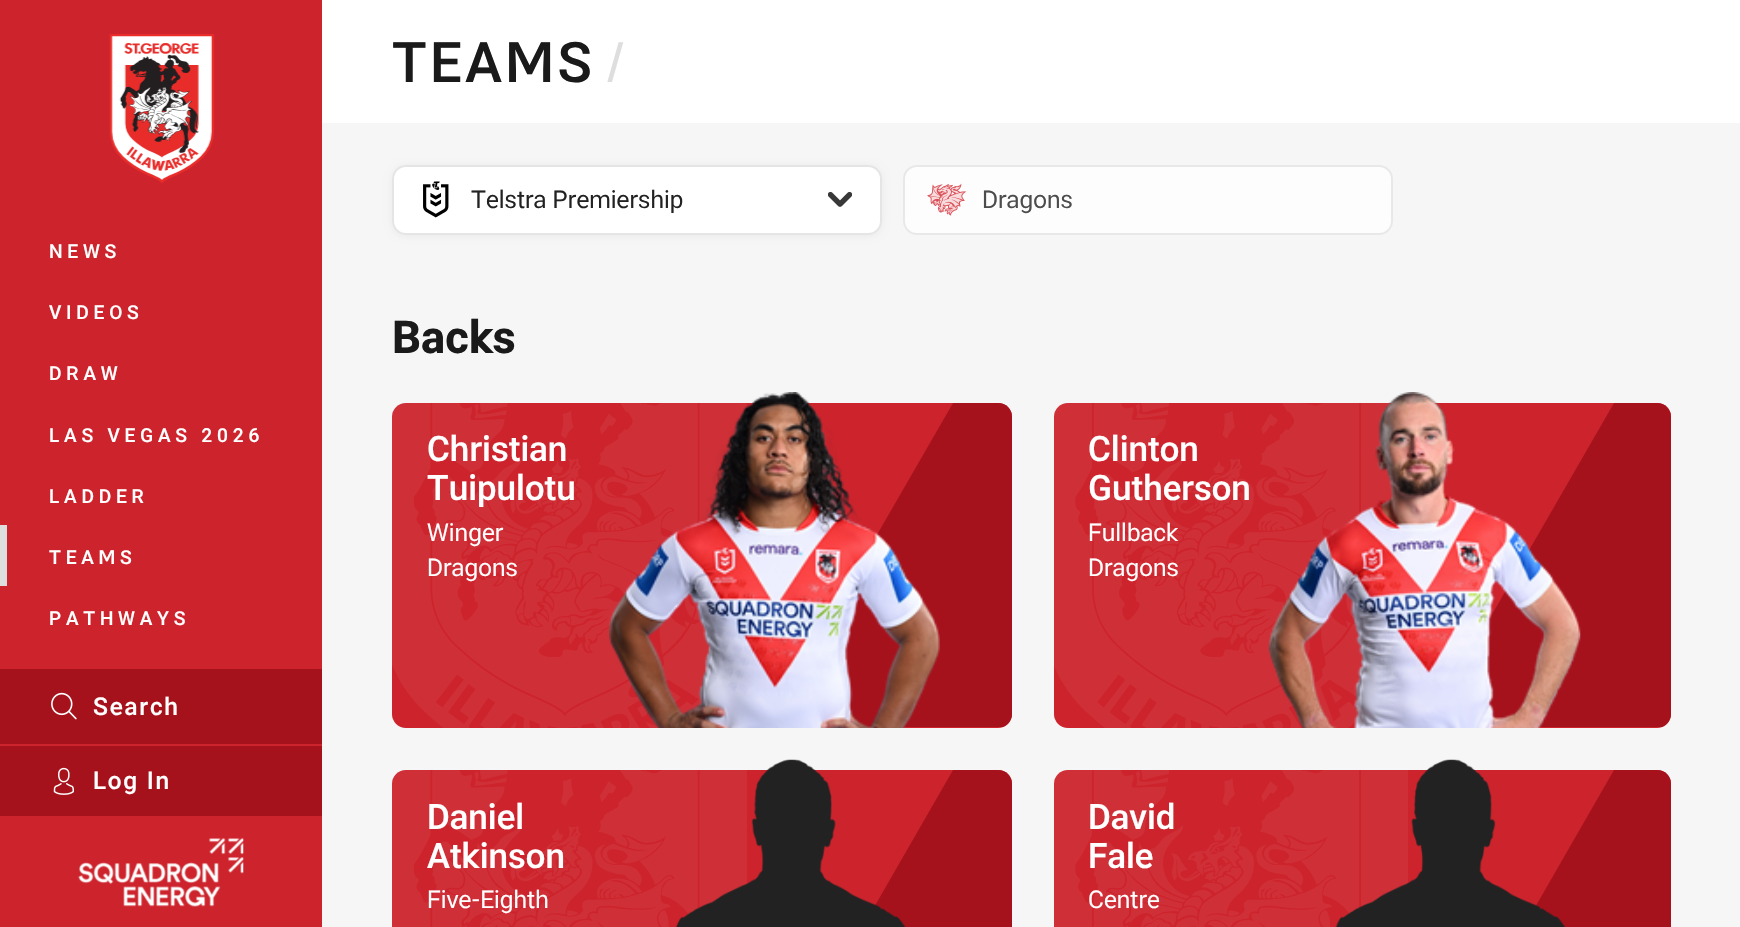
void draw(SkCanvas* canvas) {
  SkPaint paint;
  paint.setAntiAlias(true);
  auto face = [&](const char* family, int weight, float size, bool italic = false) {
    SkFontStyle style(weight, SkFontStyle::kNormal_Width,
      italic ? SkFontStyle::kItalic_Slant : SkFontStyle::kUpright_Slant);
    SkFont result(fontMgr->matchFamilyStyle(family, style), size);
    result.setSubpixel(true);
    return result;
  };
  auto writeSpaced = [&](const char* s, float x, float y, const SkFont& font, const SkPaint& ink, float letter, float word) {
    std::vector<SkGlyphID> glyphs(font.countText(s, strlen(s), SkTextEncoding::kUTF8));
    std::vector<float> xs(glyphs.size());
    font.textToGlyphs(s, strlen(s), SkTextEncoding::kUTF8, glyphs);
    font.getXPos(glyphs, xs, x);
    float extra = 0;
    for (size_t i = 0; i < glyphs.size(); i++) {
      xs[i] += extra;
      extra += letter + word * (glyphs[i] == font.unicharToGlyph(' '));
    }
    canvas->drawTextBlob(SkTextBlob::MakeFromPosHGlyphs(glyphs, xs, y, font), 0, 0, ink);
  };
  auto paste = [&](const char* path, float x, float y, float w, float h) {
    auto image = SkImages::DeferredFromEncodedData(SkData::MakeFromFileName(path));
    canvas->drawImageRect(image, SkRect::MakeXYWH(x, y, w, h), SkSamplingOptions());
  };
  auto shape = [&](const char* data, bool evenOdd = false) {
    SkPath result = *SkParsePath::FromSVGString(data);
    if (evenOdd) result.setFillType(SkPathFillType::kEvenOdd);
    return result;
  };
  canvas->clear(0xfff6f6f6);
  paint.setColor(0xffcd232c);
  canvas->drawRect(SkRect::MakeXYWH(0, 0, 322, 927), paint);
  paste("img/1.png", 109, 34, 106, 150);
  paint.setColor(0xffdedede);
  canvas->drawRect(SkRect::MakeXYWH(0, 525, 7, 61), paint);
  paint.setColor(0xffa6121c);
  canvas->drawRect(SkRect::MakeXYWH(0, 669, 322, 75), paint);
  paste("img/2.png", 51, 692, 26, 28);
  canvas->drawRect(SkRect::MakeXYWH(0, 746, 322, 70), paint);
  paste("img/3.png", 53, 767, 21, 28);
  paste("img/4.png", 78, 838, 166, 69);
  paint.setColor(0xffffffff);
  canvas->drawRect(SkRect::MakeXYWH(322, 0, 1418, 123), paint);
  paint.setColor(0x0d000000);
  paint.setMaskFilter(SkMaskFilter::MakeBlur(kNormal_SkBlurStyle, 3.5f));
  canvas->drawRoundRect(SkRect::MakeXYWH(392, 166, 490, 70), 14, 14, paint);
  paint.setMaskFilter(nullptr);
  paint.setColor(0xffffffff);
  canvas->drawRoundRect(SkRect::MakeXYWH(392, 165, 490, 70), 14, 14, paint);
  paint.setStroke(true);
  paint.setStrokeWidth(2);
  paint.setColor(0x80cccccc);
  canvas->drawRoundRect(SkRect::MakeXYWH(393, 166, 488, 68), 13, 13, paint);
  paste("img/5.png", 423, 181, 26, 37);
  paste("img/6.png", 828, 191, 24, 16);
  paint.setStroke(false);
  paint.setColor(0xfffdfdfd);
  canvas->drawRoundRect(SkRect::MakeXYWH(903, 165, 490, 70), 14, 14, paint);
  paint.setStroke(true);
  paint.setColor(0x80d4d4d4);
  canvas->drawRoundRect(SkRect::MakeXYWH(904, 166, 488, 68), 13, 13, paint);
  paste("img/7.png", 927, 183, 40, 33);
  paint.setStroke(false);
  paint.setColor(0xffcd232c);
  canvas->drawRoundRect(SkRect::MakeXYWH(392, 403, 620, 325), 14, 14, paint);
  paste("img/8.png", 392, 403, 355, 325);
  paint.setColor(0xffa6121c);
  canvas->drawPath(shape("M1003 727H766L953 403H998C1006 403 1012 409 1012 417V714C1012 720 1008 725 1003 727Z"), paint);
  paste("img/9.png", 609, 392, 331, 336);
  paint.setColor(0xffcd232c);
  canvas->drawRoundRect(SkRect::MakeXYWH(1054, 403, 617, 325), 14, 14, paint);
  paste("img/10.png", 1054, 403, 340, 325);
  paint.setColor(0xffa6121c);
  canvas->drawPath(shape("M1662 727H1427L1614 403H1657C1665 403 1671 409 1671 417V714C1671 720 1667 725 1662 727Z"), paint);
  paste("img/11.png", 1268, 392, 313, 336);
  paint.setColor(0xffcd232c);
  canvas->drawRoundRect(SkRect::MakeXYWH(392, 770, 620, 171), 14, 14, paint);
  paste("img/12.png", 392, 770, 355, 157);
  paint.setColor(0xffa6121c);
  canvas->drawPath(shape("M1003 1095H766L953 770H998C1006 770 1012 776 1012 784V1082C1012 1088 1008 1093 1003 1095Z"), paint);
  paste("img/13.png", 676, 759, 230, 168);
  paint.setColor(0xffcd232c);
  canvas->drawRoundRect(SkRect::MakeXYWH(1054, 770, 617, 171), 14, 14, paint);
  paste("img/14.png", 1054, 770, 354, 157);
  paint.setColor(0xffa6121c);
  canvas->drawPath(shape("M1662 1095H1427L1614 770H1657C1665 770 1671 776 1671 784V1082C1671 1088 1667 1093 1662 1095Z"), paint);
  paste("img/15.png", 1335, 759, 231, 168);
  auto f0 = face("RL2", 500, 19.25f);
  paint.setColor(0xffffffff);
  {
    const struct { const char* s; float x, y; } items[] = {
      {"NEWS", 49, 258},
      {"VIDEOS", 49, 319},
      {"DRAW", 49, 380},
      {"LAS VEGAS 2026", 49, 442},
      {"LADDER", 49, 503},
      {"TEAMS", 49, 564},
      {"PATHWAYS", 49, 625},
    };
    for (auto [s, x, y] : items) {
      writeSpaced(s, x, y, f0, paint, 4.75f, 0);
    }
  }
  auto f1 = face("RL2", 500, 24.5f);
  writeSpaced("Search", 93, 715, f1, paint, 1.75f, 0);
  writeSpaced("Log In", 93, 789, f1, paint, 1.75f, 0);
  auto f2 = face("RL2", 500, 56);
  paint.setColor(0xff1a1a1a);
  writeSpaced("TEAMS", 392, 82, f2, paint, 3.5f, 0);
  auto f3 = face("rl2", 400, 56);
  paint.setColor(0xffdedede);
  writeSpaced("/", 604, 82, f3, paint, 3.5f, 0);
  auto f4 = face("rl2", 400, 24.5f);
  paint.setColor(0xff222222);
  canvas->drawString("Telstra Premiership", 471, 208, f4, paint);
  paint.setColor(0xff4c4c4c);
  canvas->drawString("Dragons", 982, 208, f4, paint);
  auto f5 = face("RL2", 700, 45.5f);
  paint.setColor(0xff1a1a1a);
  canvas->drawString("Backs", 392, 353, f5, paint);
  auto f6 = face("RL2", 500, 35);
  paint.setColor(0xffffffff);
  canvas->drawString("Christian", 427, 461, f6, paint);
  canvas->drawString("Tuipulotu", 427, 500, f6, paint);
  canvas->drawString("Winger", 427, 541, f4, paint);
  canvas->drawString("Dragons", 427, 576, f4, paint);
  canvas->drawString("Clinton", 1088, 461, f6, paint);
  canvas->drawString("Gutherson", 1088, 500, f6, paint);
  canvas->drawString("Fullback", 1088, 541, f4, paint);
  canvas->drawString("Dragons", 1088, 576, f4, paint);
  canvas->drawString("Daniel", 427, 829, f6, paint);
  canvas->drawString("Atkinson", 427, 868, f6, paint);
  canvas->drawString("Five-Eighth", 427, 908, f4, paint);
  canvas->drawString("David", 1088, 829, f6, paint);
  canvas->drawString("Fale", 1088, 868, f6, paint);
  canvas->drawString("Centre", 1088, 908, f4, paint);
}
